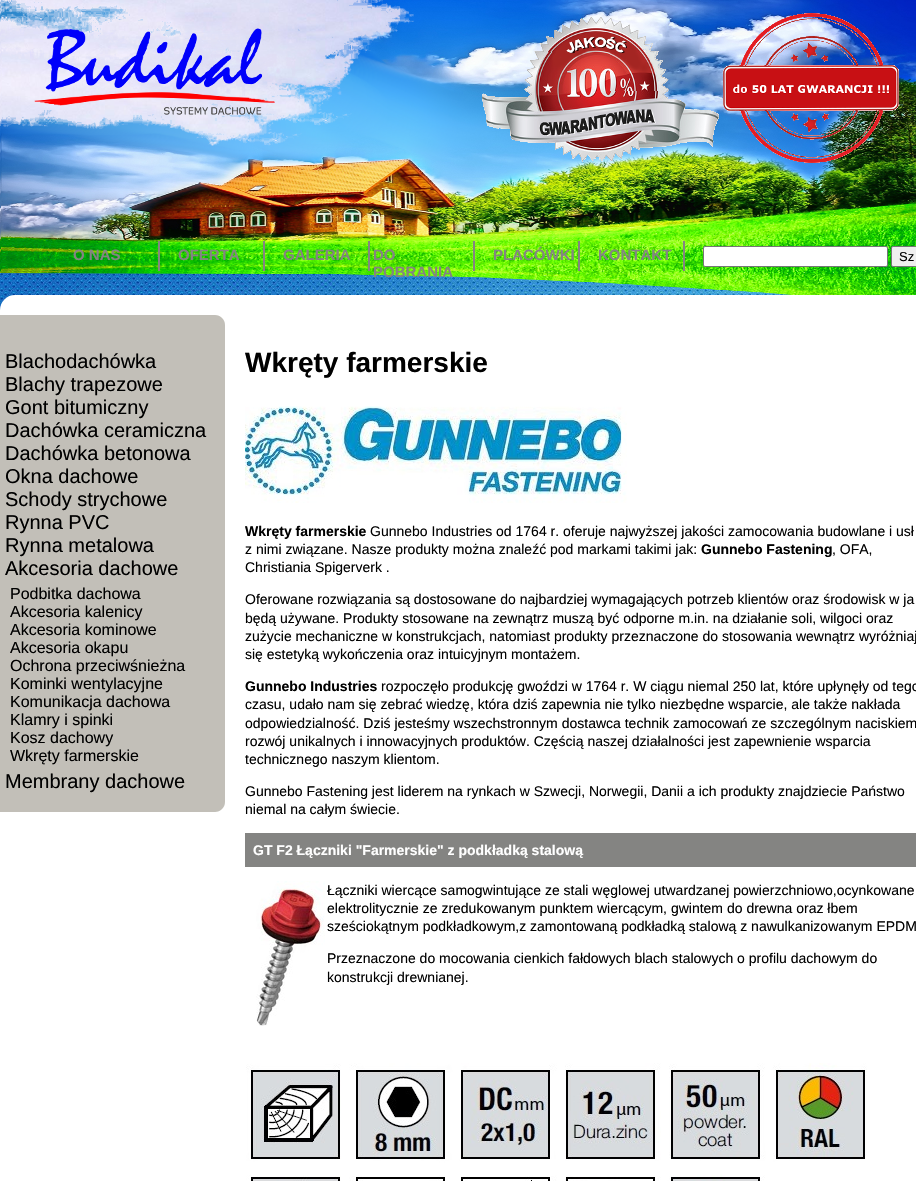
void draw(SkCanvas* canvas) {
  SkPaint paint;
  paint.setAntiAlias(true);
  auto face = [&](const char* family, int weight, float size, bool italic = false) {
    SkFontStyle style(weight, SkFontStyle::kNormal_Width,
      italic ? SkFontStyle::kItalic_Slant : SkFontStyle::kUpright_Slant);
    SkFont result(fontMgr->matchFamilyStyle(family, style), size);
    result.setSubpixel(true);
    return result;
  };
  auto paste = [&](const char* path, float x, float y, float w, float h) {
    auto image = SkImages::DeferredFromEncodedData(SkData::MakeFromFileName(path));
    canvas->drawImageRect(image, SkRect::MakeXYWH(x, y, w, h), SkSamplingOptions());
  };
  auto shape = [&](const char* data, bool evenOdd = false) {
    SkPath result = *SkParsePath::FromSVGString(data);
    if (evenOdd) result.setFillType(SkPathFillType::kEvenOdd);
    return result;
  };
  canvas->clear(0xffffffff);
  paste("img/1.png", 0, 273, 792, 37);
  paste("img/2.png", 0, 0, 916, 295);
  paste("img/3.png", 34, 28, 241, 87);
  {
    const struct { float x, y, w, h; SkColor color; } items[] = {
      {158, 241, 2, 30, 0xff848482},
      {263, 241, 2, 30, 0xff848482},
      {368, 241, 2, 30, 0xff848482},
      {473, 241, 2, 30, 0xff848482},
      {578, 241, 2, 30, 0xff848482},
      {683, 241, 2, 30, 0xff848482},
    };
    for (auto [x, y, w, h, color] : items) {
      paint.setColor(color);
      canvas->drawRect(SkRect::MakeXYWH(x, y, w, h), paint);
    }
  }
  paint.setColor(0xffffffff);
  canvas->drawRoundRect(SkRect::MakeXYWH(703.5f, 246.5f, 184, 20), 1.5f, 1.5f, paint);
  paint.setStroke(true);
  paint.setStrokeWidth(1);
  paint.setColor(0xff767676);
  canvas->drawRoundRect(SkRect::MakeXYWH(703.5f, 246.5f, 184, 20), 1.5f, 1.5f, paint);
  paint.setStroke(false);
  paint.setColor(0xffefefef);
  canvas->drawRoundRect(SkRect::MakeXYWH(891.5f, 246.5f, 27, 20), 1.5f, 1.5f, paint);
  paint.setStroke(true);
  paint.setColor(0xff767676);
  canvas->drawRoundRect(SkRect::MakeXYWH(891.5f, 246.5f, 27, 20), 1.5f, 1.5f, paint);
  paint.setStroke(false);
  paint.setColor(0xffffffff);
  canvas->drawRoundRect(SkRect::MakeXYWH(0, 295, 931, 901), 15, 15, paint);
  paint.setColor(0xffc2bfb8);
  canvas->drawPath(shape("M0 315H215C220.5 315 225 319.5 225 325V802C225 807.5 220.5 812 215 812H0Z"), paint);
  paste("img/4.png", 245, 406, 382, 97);
  paint.setColor(0xff848482);
  canvas->drawRect(SkRect::MakeXYWH(245, 833, 671, 34), paint);
  paste("img/5.png", 256, 881, 69, 145);
  paste("img/6.png", 246, 1063, 621, 118);
  auto f0 = face("Liberation Sans", 700, 15);
  {
    const struct { const char* s; float x, y; } items[] = {
      {"O NAS", 73, 260},
      {"OFERTA", 178, 260},
      {"GALERIA", 283, 260},
      {"DO", 373, 260},
      {"POBRANIA", 373, 277},
      {"PLACÓWKI", 493, 260},
      {"KONTAKT", 598, 260},
    };
    for (auto [s, x, y] : items) {
      canvas->drawString(s, x, y, f0, paint);
    }
  }
  auto f1 = face("Liberation Sans", 400, 13);
  paint.setColor(0xff000000);
  canvas->drawString("Sz", 899, 261, f1, paint);
  auto f2 = face("Liberation Sans", 400, 20);
  {
    const struct { const char* s; float x, y; } items[] = {
      {"Blachodachówka", 5, 368},
      {"Blachy trapezowe", 5, 391},
      {"Gont bitumiczny", 5, 414},
      {"Dachówka ceramiczna", 5, 437},
      {"Dachówka betonowa", 5, 460},
      {"Okna dachowe", 5, 483},
      {"Schody strychowe", 5, 506},
      {"Rynna PVC", 5, 529},
      {"Rynna metalowa", 5, 552},
      {"Akcesoria dachowe", 5, 575},
    };
    for (auto [s, x, y] : items) {
      canvas->drawString(s, x, y, f2, paint);
    }
  }
  auto f3 = face("Liberation Sans", 400, 16);
  {
    const struct { const char* s; float x, y; } items[] = {
      {"Podbitka dachowa", 10, 599},
      {"Akcesoria kalenicy", 10, 617},
      {"Akcesoria kominowe", 10, 635},
      {"Akcesoria okapu", 10, 653},
      {"Ochrona przeciwśnieżna", 10, 671},
      {"Kominki wentylacyjne", 10, 689},
      {"Komunikacja dachowa", 10, 707},
      {"Klamry i spinki", 10, 725},
      {"Kosz dachowy", 10, 743},
      {"Wkręty farmerskie", 10, 761},
    };
    for (auto [s, x, y] : items) {
      canvas->drawString(s, x, y, f3, paint);
    }
  }
  canvas->drawString("Membrany dachowe", 5, 788, f2, paint);
  auto f4 = face("Liberation Sans", 700, 28);
  canvas->drawString("Wkręty farmerskie", 245, 372, f4, paint);
  auto f5 = face("Liberation Sans", 700, 14);
  canvas->drawString("Wkręty farmerskie", 245, 536, f5, paint);
  auto f6 = face("Liberation Sans", 400, 14);
  canvas->drawString("Gunnebo Industries od 1764 r. oferuje najwyższej jakości zamocowania budowlane i usł", 370, 536, f6, paint);
  canvas->drawString("z nimi związane. Nasze produkty można znaleźć pod markami takimi jak:", 245, 554, f6, paint);
  canvas->drawString("Gunnebo Fastening", 701, 554, f5, paint);
  {
    const struct { const char* s; float x, y; } items[] = {
      {", OFA,", 832, 554},
      {"Christiania Spigerverk .", 245, 572},
      {"Oferowane rozwiązania są dostosowane do najbardziej wymagających potrzeb klientów oraz środowisk w ja", 245, 604},
      {"będą używane. Produkty stosowane na zewnątrz muszą być odporne m.in. na działanie soli, wilgoci oraz", 245, 623},
      {"zużycie mechaniczne w konstrukcjach, natomiast produkty przeznaczone do stosowania wewnątrz wyróżniaj", 245, 641},
      {"się estetyką wykończenia oraz intuicyjnym montażem.", 245, 659},
    };
    for (auto [s, x, y] : items) {
      canvas->drawString(s, x, y, f6, paint);
    }
  }
  canvas->drawString("Gunnebo Industries", 245, 691, f5, paint);
  {
    const struct { const char* s; float x, y; } items[] = {
      {"rozpoczęło produkcję gwoździ w 1764 r. W ciągu niemal 250 lat, które upłynęły od tego", 381, 691},
      {"czasu, udało nam się zebrać wiedzę, która dziś zapewnia nie tylko niezbędne wsparcie, ale także nakłada", 245, 709},
      {"odpowiedzialność. Dziś jesteśmy wszechstronnym dostawca technik zamocowań ze szczególnym naciskiem", 245, 728},
      {"rozwój unikalnych i innowacyjnych produktów. Częścią naszej działalności jest zapewnienie wsparcia", 245, 746},
      {"technicznego naszym klientom.", 245, 764},
      {"Gunnebo Fastening jest liderem na rynkach w Szwecji, Norwegii, Danii a ich produkty znajdziecie Państwo", 245, 796},
      {"niemal na całym świecie.", 245, 814},
    };
    for (auto [s, x, y] : items) {
      canvas->drawString(s, x, y, f6, paint);
    }
  }
  paint.setColor(0xffffffff);
  canvas->drawString("GT F2 Łączniki \"Farmerskie\" z podkładką stalową", 253, 855, f5, paint);
  paint.setColor(0xff000000);
  {
    const struct { const char* s; float x, y; } items[] = {
      {"Łączniki wiercące samogwintujące ze stali węglowej utwardzanej powierzchniowo,ocynkowane", 327, 895},
      {"elektrolitycznie ze zredukowanym punktem wiercącym, gwintem do drewna oraz łbem", 327, 913},
      {"sześciokątnym podkładkowym,z zamontowaną podkładką stalową z nawulkanizowanym EPDM", 327, 931},
      {"Przeznaczone do mocowania cienkich fałdowych blach stalowych o profilu dachowym do", 327, 963},
      {"konstrukcji drewnianej.", 327, 982},
    };
    for (auto [s, x, y] : items) {
      canvas->drawString(s, x, y, f6, paint);
    }
  }
}
